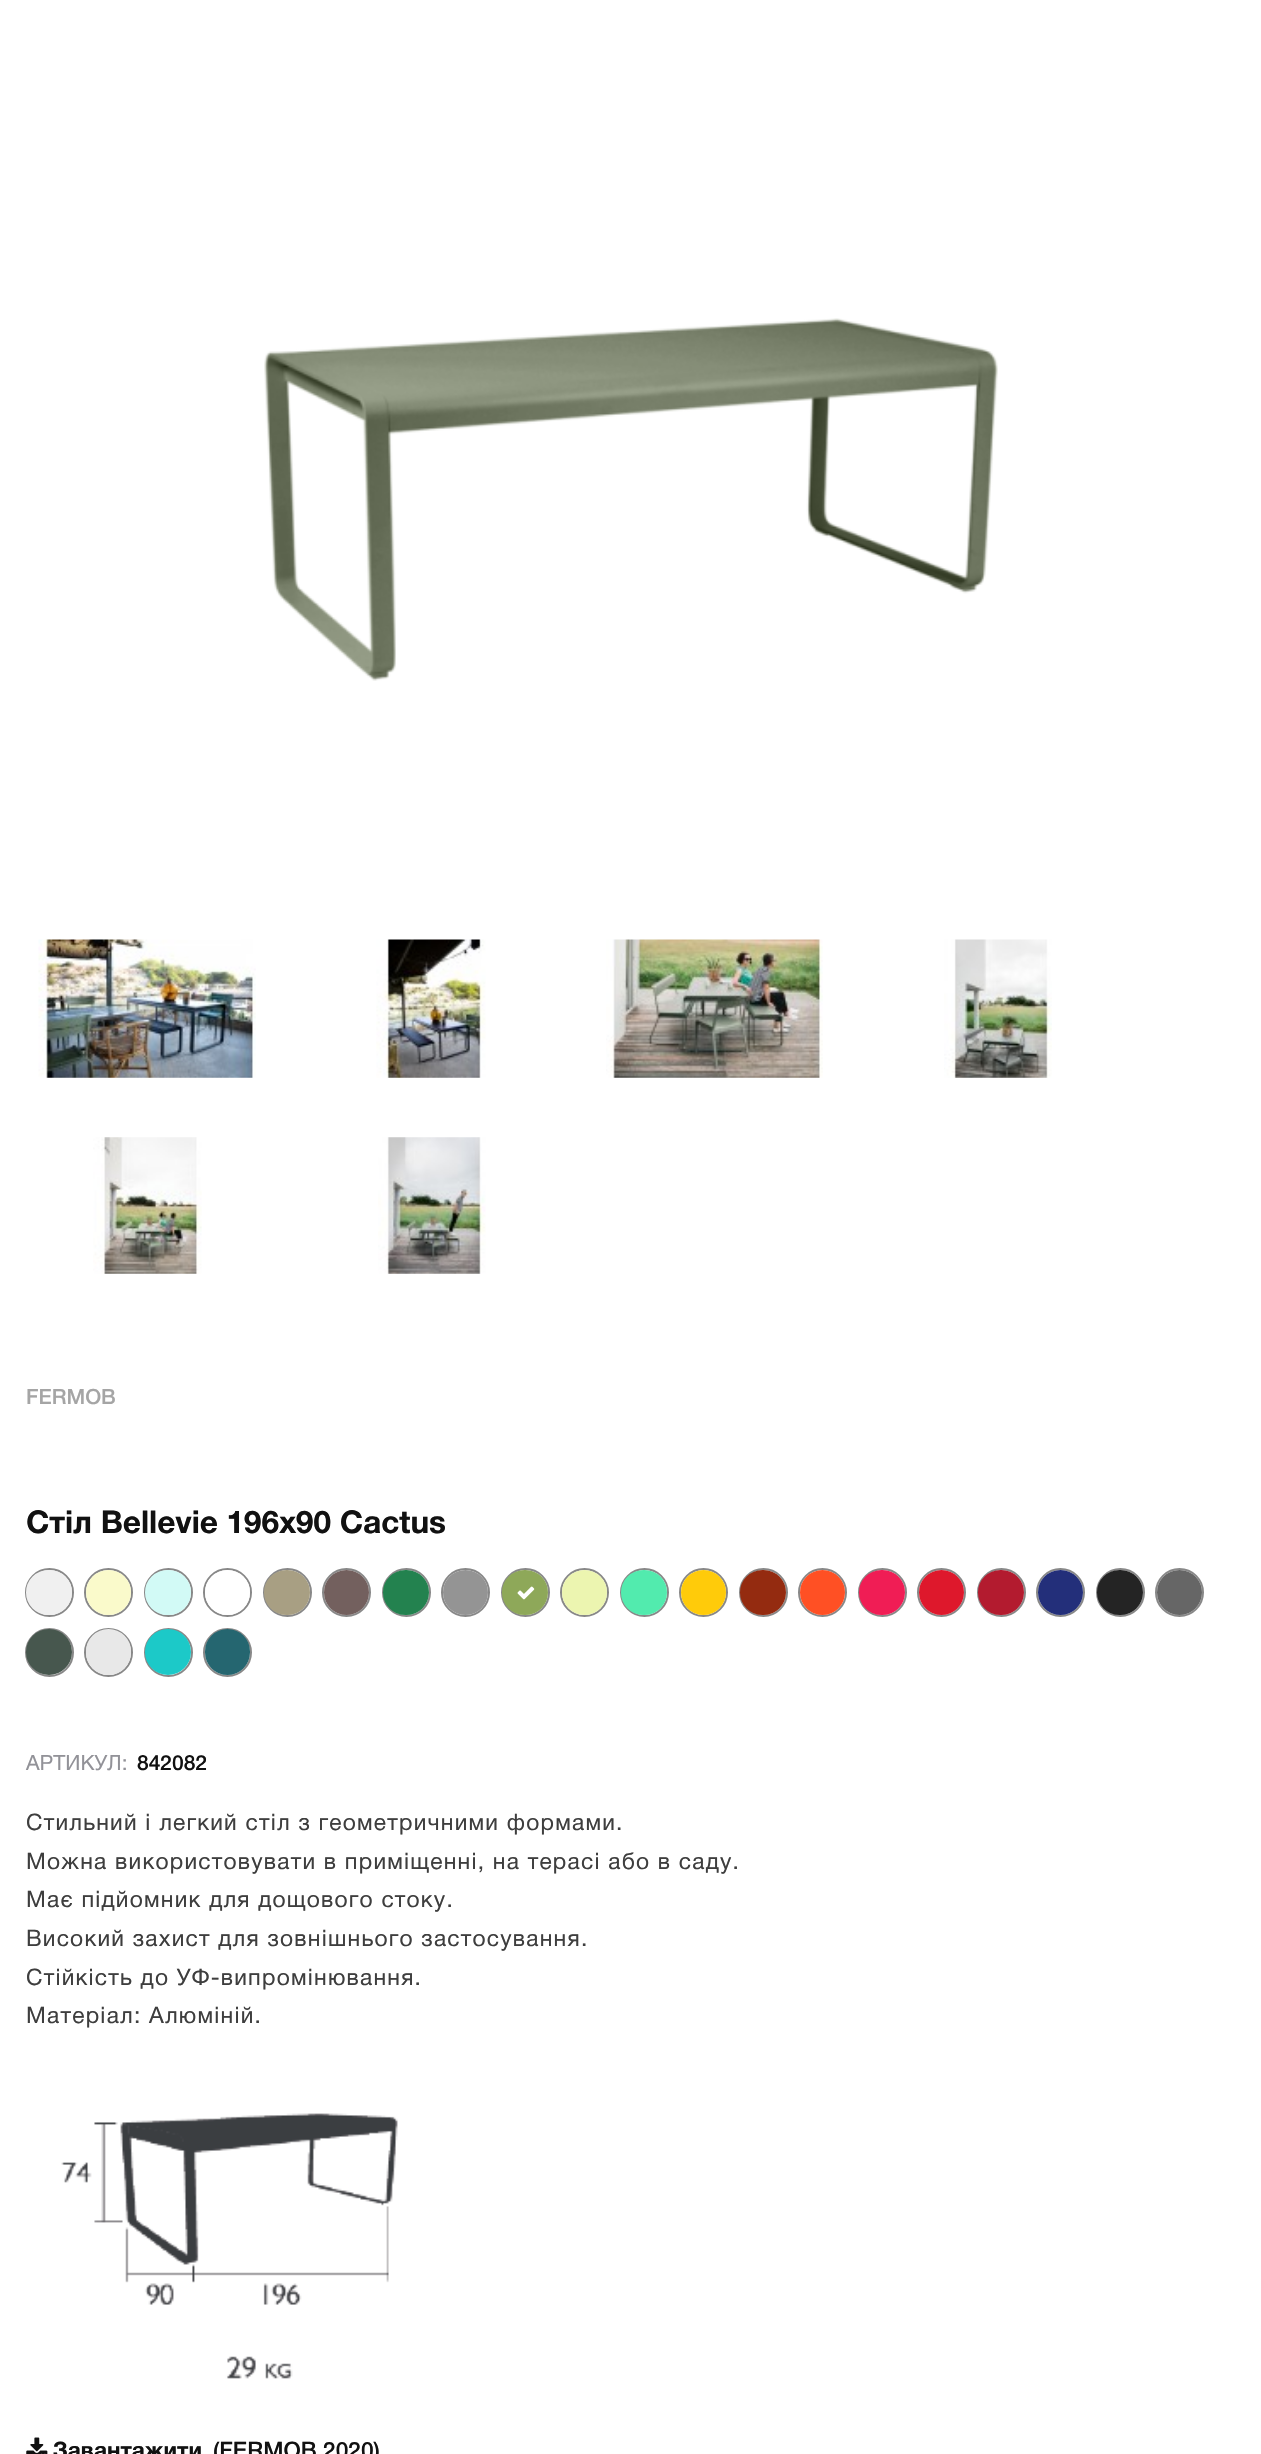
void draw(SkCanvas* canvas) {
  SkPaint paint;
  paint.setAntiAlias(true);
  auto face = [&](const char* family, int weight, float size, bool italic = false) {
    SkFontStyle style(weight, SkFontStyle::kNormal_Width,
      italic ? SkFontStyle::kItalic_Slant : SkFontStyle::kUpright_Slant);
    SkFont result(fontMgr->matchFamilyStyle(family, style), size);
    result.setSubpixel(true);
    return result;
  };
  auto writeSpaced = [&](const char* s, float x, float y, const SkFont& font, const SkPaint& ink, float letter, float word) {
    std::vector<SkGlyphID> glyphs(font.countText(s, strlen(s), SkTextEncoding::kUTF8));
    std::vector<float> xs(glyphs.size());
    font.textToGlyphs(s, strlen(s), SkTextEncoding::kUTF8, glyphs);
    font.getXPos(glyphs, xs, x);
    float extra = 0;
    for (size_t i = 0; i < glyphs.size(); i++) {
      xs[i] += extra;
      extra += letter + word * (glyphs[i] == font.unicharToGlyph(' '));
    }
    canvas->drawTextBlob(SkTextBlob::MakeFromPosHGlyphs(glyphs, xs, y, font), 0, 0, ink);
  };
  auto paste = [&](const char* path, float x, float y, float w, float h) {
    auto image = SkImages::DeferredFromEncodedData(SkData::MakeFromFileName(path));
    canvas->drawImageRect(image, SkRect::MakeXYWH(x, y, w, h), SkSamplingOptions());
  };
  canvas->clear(0xffffffff);
  paste("img/1.png", 264, 318, 734, 363);
  paste("img/2.png", 38, 939, 218, 139);
  paste("img/3.png", 376, 939, 110, 139);
  paste("img/4.png", 606, 939, 217, 139);
  paste("img/5.png", 944, 939, 108, 139);
  paste("img/6.png", 93, 1137, 109, 137);
  paste("img/7.png", 378, 1137, 108, 137);
  paint.setStroke(true);
  paint.setStrokeWidth(2);
  paint.setColor(0xff888888);
  canvas->drawCircle(49.5f, 1592.5f, 23.5f, paint);
  paint.setStroke(false);
  paint.setColor(0xfff0f0f0);
  canvas->drawRoundRect(SkRect::MakeXYWH(28, 1572, 42, 41), 20.5f, 20.5f, paint);
  paint.setStroke(true);
  paint.setStrokeWidth(4);
  canvas->drawRoundRect(SkRect::MakeXYWH(28, 1572, 42, 41), 20.5f, 20.5f, paint);
  paint.setStrokeWidth(2);
  paint.setColor(0xff888888);
  canvas->drawCircle(108.5f, 1592.5f, 23.5f, paint);
  paint.setStroke(false);
  paint.setColor(0xfffafacb);
  canvas->drawCircle(108.5f, 1592.5f, 20.5f, paint);
  paint.setStroke(true);
  paint.setStrokeWidth(4);
  canvas->drawCircle(108.5f, 1592.5f, 20.5f, paint);
  paint.setStrokeWidth(2);
  paint.setColor(0xff888888);
  canvas->drawCircle(168.5f, 1592.5f, 23.5f, paint);
  paint.setStroke(false);
  paint.setColor(0xffd2faf6);
  canvas->drawRoundRect(SkRect::MakeXYWH(147, 1572, 42, 41), 20.5f, 20.5f, paint);
  paint.setStroke(true);
  paint.setStrokeWidth(4);
  canvas->drawRoundRect(SkRect::MakeXYWH(147, 1572, 42, 41), 20.5f, 20.5f, paint);
  paint.setStrokeWidth(2);
  paint.setColor(0xff888888);
  canvas->drawCircle(227.5f, 1592.5f, 23.5f, paint);
  paint.setStroke(false);
  paint.setColor(0xffffffff);
  canvas->drawCircle(227.5f, 1592.5f, 20.5f, paint);
  paint.setStroke(true);
  paint.setStrokeWidth(4);
  canvas->drawCircle(227.5f, 1592.5f, 20.5f, paint);
  paint.setStrokeWidth(2);
  paint.setColor(0xff888888);
  canvas->drawCircle(287.5f, 1592.5f, 23.5f, paint);
  paint.setStroke(false);
  paint.setColor(0xffa89f83);
  canvas->drawRoundRect(SkRect::MakeXYWH(266, 1572, 42, 41), 20.5f, 20.5f, paint);
  paint.setStroke(true);
  paint.setStrokeWidth(4);
  canvas->drawRoundRect(SkRect::MakeXYWH(266, 1572, 42, 41), 20.5f, 20.5f, paint);
  paint.setStrokeWidth(2);
  paint.setColor(0xff888888);
  canvas->drawCircle(346.5f, 1592.5f, 23.5f, paint);
  paint.setStroke(false);
  paint.setColor(0xff73605e);
  canvas->drawCircle(346.5f, 1592.5f, 20.5f, paint);
  paint.setStroke(true);
  paint.setStrokeWidth(4);
  canvas->drawCircle(346.5f, 1592.5f, 20.5f, paint);
  paint.setStrokeWidth(2);
  paint.setColor(0xff888888);
  canvas->drawCircle(406.5f, 1592.5f, 23.5f, paint);
  paint.setStroke(false);
  paint.setColor(0xff23824f);
  canvas->drawRoundRect(SkRect::MakeXYWH(385, 1572, 42, 41), 20.5f, 20.5f, paint);
  paint.setStroke(true);
  paint.setStrokeWidth(4);
  canvas->drawRoundRect(SkRect::MakeXYWH(385, 1572, 42, 41), 20.5f, 20.5f, paint);
  paint.setStrokeWidth(2);
  paint.setColor(0xff888888);
  canvas->drawCircle(465.5f, 1592.5f, 23.5f, paint);
  paint.setStroke(false);
  paint.setColor(0xff949494);
  canvas->drawCircle(465.5f, 1592.5f, 20.5f, paint);
  paint.setStroke(true);
  paint.setStrokeWidth(4);
  canvas->drawCircle(465.5f, 1592.5f, 20.5f, paint);
  paint.setStrokeWidth(2);
  paint.setColor(0xff888888);
  canvas->drawCircle(525.5f, 1592.5f, 23.5f, paint);
  paint.setStroke(false);
  paint.setColor(0xff8ea859);
  canvas->drawRoundRect(SkRect::MakeXYWH(504, 1572, 42, 41), 20.5f, 20.5f, paint);
  paint.setStroke(true);
  paint.setStrokeWidth(4);
  canvas->drawRoundRect(SkRect::MakeXYWH(504, 1572, 42, 41), 20.5f, 20.5f, paint);
  paste("img/8.png", 517, 1586, 18, 14);
  paint.setStrokeWidth(2);
  paint.setColor(0xff888888);
  canvas->drawCircle(584.5f, 1592.5f, 23.5f, paint);
  paint.setStroke(false);
  paint.setColor(0xffecf5b0);
  canvas->drawCircle(584.5f, 1592.5f, 20.5f, paint);
  paint.setStroke(true);
  paint.setStrokeWidth(4);
  canvas->drawCircle(584.5f, 1592.5f, 20.5f, paint);
  paint.setStrokeWidth(2);
  paint.setColor(0xff888888);
  canvas->drawCircle(644.5f, 1592.5f, 23.5f, paint);
  paint.setStroke(false);
  paint.setColor(0xff52ebae);
  canvas->drawRoundRect(SkRect::MakeXYWH(623, 1572, 42, 41), 20.5f, 20.5f, paint);
  paint.setStroke(true);
  paint.setStrokeWidth(4);
  canvas->drawRoundRect(SkRect::MakeXYWH(623, 1572, 42, 41), 20.5f, 20.5f, paint);
  paint.setStrokeWidth(2);
  paint.setColor(0xff888888);
  canvas->drawCircle(703.5f, 1592.5f, 23.5f, paint);
  paint.setStroke(false);
  paint.setColor(0xffffcb0a);
  canvas->drawCircle(703.5f, 1592.5f, 20.5f, paint);
  paint.setStroke(true);
  paint.setStrokeWidth(4);
  canvas->drawCircle(703.5f, 1592.5f, 20.5f, paint);
  paint.setStrokeWidth(2);
  paint.setColor(0xff888888);
  canvas->drawCircle(763.5f, 1592.5f, 23.5f, paint);
  paint.setStroke(false);
  paint.setColor(0xff942b10);
  canvas->drawRoundRect(SkRect::MakeXYWH(742, 1572, 42, 41), 20.5f, 20.5f, paint);
  paint.setStroke(true);
  paint.setStrokeWidth(4);
  canvas->drawRoundRect(SkRect::MakeXYWH(742, 1572, 42, 41), 20.5f, 20.5f, paint);
  paint.setStrokeWidth(2);
  paint.setColor(0xff888888);
  canvas->drawCircle(822.5f, 1592.5f, 23.5f, paint);
  paint.setStroke(false);
  paint.setColor(0xffff5024);
  canvas->drawCircle(822.5f, 1592.5f, 20.5f, paint);
  paint.setStroke(true);
  paint.setStrokeWidth(4);
  canvas->drawCircle(822.5f, 1592.5f, 20.5f, paint);
  paint.setStrokeWidth(2);
  paint.setColor(0xff888888);
  canvas->drawCircle(882.5f, 1592.5f, 23.5f, paint);
  paint.setStroke(false);
  paint.setColor(0xfff01d55);
  canvas->drawRoundRect(SkRect::MakeXYWH(861, 1572, 42, 41), 20.5f, 20.5f, paint);
  paint.setStroke(true);
  paint.setStrokeWidth(4);
  canvas->drawRoundRect(SkRect::MakeXYWH(861, 1572, 42, 41), 20.5f, 20.5f, paint);
  paint.setStrokeWidth(2);
  paint.setColor(0xff888888);
  canvas->drawCircle(941.5f, 1592.5f, 23.5f, paint);
  paint.setStroke(false);
  paint.setColor(0xffde182c);
  canvas->drawCircle(941.5f, 1592.5f, 20.5f, paint);
  paint.setStroke(true);
  paint.setStrokeWidth(4);
  canvas->drawCircle(941.5f, 1592.5f, 20.5f, paint);
  paint.setStrokeWidth(2);
  paint.setColor(0xff888888);
  canvas->drawCircle(1001.5f, 1592.5f, 23.5f, paint);
  paint.setStroke(false);
  paint.setColor(0xffb31b2f);
  canvas->drawRoundRect(SkRect::MakeXYWH(980, 1572, 42, 41), 20.5f, 20.5f, paint);
  paint.setStroke(true);
  paint.setStrokeWidth(4);
  canvas->drawRoundRect(SkRect::MakeXYWH(980, 1572, 42, 41), 20.5f, 20.5f, paint);
  paint.setStrokeWidth(2);
  paint.setColor(0xff888888);
  canvas->drawCircle(1060.5f, 1592.5f, 23.5f, paint);
  paint.setStroke(false);
  paint.setColor(0xff232f7a);
  canvas->drawCircle(1060.5f, 1592.5f, 20.5f, paint);
  paint.setStroke(true);
  paint.setStrokeWidth(4);
  canvas->drawCircle(1060.5f, 1592.5f, 20.5f, paint);
  paint.setStrokeWidth(2);
  paint.setColor(0xff888888);
  canvas->drawCircle(1120.5f, 1592.5f, 23.5f, paint);
  paint.setStroke(false);
  paint.setColor(0xff242424);
  canvas->drawRoundRect(SkRect::MakeXYWH(1099, 1572, 42, 41), 20.5f, 20.5f, paint);
  paint.setStroke(true);
  paint.setStrokeWidth(4);
  canvas->drawRoundRect(SkRect::MakeXYWH(1099, 1572, 42, 41), 20.5f, 20.5f, paint);
  paint.setStrokeWidth(2);
  paint.setColor(0xff888888);
  canvas->drawCircle(1179.5f, 1592.5f, 23.5f, paint);
  paint.setStroke(false);
  paint.setColor(0xff666666);
  canvas->drawCircle(1179.5f, 1592.5f, 20.5f, paint);
  paint.setStroke(true);
  paint.setStrokeWidth(4);
  canvas->drawCircle(1179.5f, 1592.5f, 20.5f, paint);
  paint.setStrokeWidth(2);
  paint.setColor(0xff888888);
  canvas->drawCircle(49.5f, 1652.5f, 23.5f, paint);
  paint.setStroke(false);
  paint.setColor(0xff47574e);
  canvas->drawCircle(49, 1652, 21, paint);
  paint.setStroke(true);
  paint.setStrokeWidth(4);
  canvas->drawCircle(49, 1652, 21, paint);
  paint.setStrokeWidth(2);
  paint.setColor(0xff888888);
  canvas->drawCircle(108.5f, 1652.5f, 23.5f, paint);
  paint.setStroke(false);
  paint.setColor(0xffe8e8e8);
  canvas->drawRoundRect(SkRect::MakeXYWH(88, 1631, 41, 42), 20.5f, 20.5f, paint);
  paint.setStroke(true);
  paint.setStrokeWidth(4);
  canvas->drawRoundRect(SkRect::MakeXYWH(88, 1631, 41, 42), 20.5f, 20.5f, paint);
  paint.setStrokeWidth(2);
  paint.setColor(0xff888888);
  canvas->drawCircle(168.5f, 1652.5f, 23.5f, paint);
  paint.setStroke(false);
  paint.setColor(0xff1cc9c8);
  canvas->drawCircle(168, 1652, 21, paint);
  paint.setStroke(true);
  paint.setStrokeWidth(4);
  canvas->drawCircle(168, 1652, 21, paint);
  paint.setStrokeWidth(2);
  paint.setColor(0xff888888);
  canvas->drawCircle(227.5f, 1652.5f, 23.5f, paint);
  paint.setStroke(false);
  paint.setColor(0xff256670);
  canvas->drawRoundRect(SkRect::MakeXYWH(207, 1631, 41, 42), 20.5f, 20.5f, paint);
  paint.setStroke(true);
  paint.setStrokeWidth(4);
  canvas->drawRoundRect(SkRect::MakeXYWH(207, 1631, 41, 42), 20.5f, 20.5f, paint);
  paste("img/9.png", 61, 2113, 337, 266);
  paste("img/10.png", 26, 2437, 22, 17);
  auto f0 = face("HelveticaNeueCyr", 500, 21);
  paint.setStroke(false);
  paint.setColor(0xffa5a5a5);
  canvas->drawString("FERMOB", 26, 1404, f0, paint);
  auto f1 = face("HelveticaNeueCyr", 700, 31.5f);
  paint.setColor(0xff111111);
  canvas->drawString("Стіл Bellevie 196x90 Cactus", 26, 1533, f1, paint);
  auto f2 = face("HelveticaNeueCyr", 400, 21);
  paint.setColor(0xff929298);
  canvas->drawString("АРТИКУЛ:", 26, 1770, f2, paint);
  paint.setColor(0xff111111);
  canvas->drawString("842082", 137, 1770, f0, paint);
  auto f3 = face("HelveticaNeueCyr", 400, 22.75f);
  paint.setColor(0xff3e3e3e);
  {
    const struct { const char* s; float x, y; } items[] = {
      {"Стильний і легкий стіл з геометричними формами.", 26, 1830},
      {"Можна використовувати в приміщенні, на терасі або в саду.", 26, 1869},
      {"Має підйомник для дощового стоку.", 26, 1907},
      {"Високий захист для зовнішнього застосування.", 26, 1946},
      {"Стійкість до УФ-випромінювання.", 26, 1985},
      {"Матеріал: Алюміній.", 26, 2023},
    };
    for (auto [s, x, y] : items) {
      writeSpaced(s, x, y, f3, paint, 1.22f, 0);
    }
  }
  auto f4 = face("HelveticaNeueCyr", 700, 22.75f);
  paint.setColor(0xff111111);
  canvas->drawString("Завантажити", 53, 2458, f4, paint);
  auto f5 = face("HelveticaNeueCyr", 500, 22.75f);
  canvas->drawString("(FERMOB 2020)", 213, 2458, f5, paint);
}
